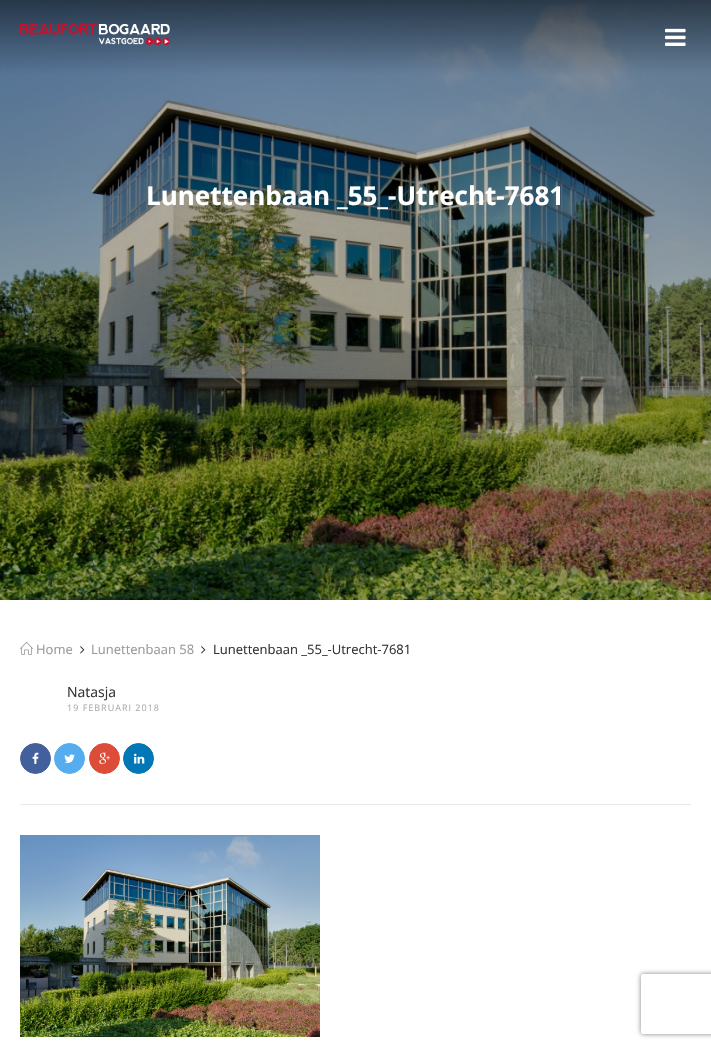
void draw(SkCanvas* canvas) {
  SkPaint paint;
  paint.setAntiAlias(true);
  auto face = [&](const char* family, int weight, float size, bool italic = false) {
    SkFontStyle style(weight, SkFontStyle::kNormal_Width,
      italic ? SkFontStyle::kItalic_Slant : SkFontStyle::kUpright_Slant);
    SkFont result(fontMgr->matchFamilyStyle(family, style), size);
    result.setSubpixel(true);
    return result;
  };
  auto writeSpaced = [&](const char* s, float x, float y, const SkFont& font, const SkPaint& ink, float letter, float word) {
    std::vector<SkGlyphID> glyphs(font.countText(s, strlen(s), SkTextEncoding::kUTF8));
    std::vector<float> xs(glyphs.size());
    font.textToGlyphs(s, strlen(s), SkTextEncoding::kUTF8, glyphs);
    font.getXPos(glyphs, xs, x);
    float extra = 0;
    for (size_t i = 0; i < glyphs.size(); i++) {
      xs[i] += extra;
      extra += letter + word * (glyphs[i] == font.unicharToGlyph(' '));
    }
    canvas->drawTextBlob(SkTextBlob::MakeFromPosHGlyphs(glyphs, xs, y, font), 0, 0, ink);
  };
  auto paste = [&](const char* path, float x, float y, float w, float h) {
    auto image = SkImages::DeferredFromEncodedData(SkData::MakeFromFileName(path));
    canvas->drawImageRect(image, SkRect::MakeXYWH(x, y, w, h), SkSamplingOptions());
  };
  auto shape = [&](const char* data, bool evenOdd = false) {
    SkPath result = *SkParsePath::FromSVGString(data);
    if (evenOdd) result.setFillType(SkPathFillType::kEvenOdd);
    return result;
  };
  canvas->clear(0xffffffff);
  paste("img/3.png", 0, 0, 711, 600);
  paste("img/1.png", 20, 24, 150, 21);
  paste("img/2.png", 665, 28, 21, 18);
  paste("img/4.png", 20, 641, 13, 14);
  paste("img/5.png", 80, 646, 5, 8);
  paste("img/5.png", 201, 646, 5, 8);
  paint.setColor(0xffe8e8e8);
  canvas->drawRect(SkRect::MakeXYWH(20, 804, 671, 1), paint);
  paint.setColor(0xff43609c);
  canvas->drawCircle(35.5f, 758.5f, 15, paint);
  paint.setStroke(true);
  paint.setStrokeWidth(1);
  canvas->drawCircle(35.5f, 758.5f, 15, paint);
  paste("img/6.png", 32, 752, 7, 12);
  paint.setStroke(false);
  paint.setColor(0xff55acee);
  canvas->drawCircle(69.5f, 758.5f, 15, paint);
  paint.setStroke(true);
  canvas->drawCircle(69.5f, 758.5f, 15, paint);
  paste("img/7.png", 64, 754, 11, 9);
  paint.setStroke(false);
  paint.setColor(0xffdd4b39);
  canvas->drawCircle(104.5f, 758.5f, 15, paint);
  paint.setStroke(true);
  canvas->drawCircle(104.5f, 758.5f, 15, paint);
  paste("img/8.png", 99, 752, 11, 12);
  paint.setStroke(false);
  paint.setColor(0xff0177b5);
  canvas->drawCircle(138.5f, 758.5f, 15, paint);
  paint.setStroke(true);
  canvas->drawCircle(138.5f, 758.5f, 15, paint);
  paste("img/9.png", 134, 753, 11, 11);
  paste("img/10.png", 20, 835, 300, 202);
  canvas->save();
  canvas->clipPath(shape("M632 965H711V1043H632ZM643 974H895C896 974 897 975 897 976V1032C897 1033 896 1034 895 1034H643C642 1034 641 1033 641 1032V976C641 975 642 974 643 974Z", true), true);
  paint.setStroke(false);
  paint.setColor(0xff808080);
  paint.setMaskFilter(SkMaskFilter::MakeBlur(kNormal_SkBlurStyle, 2.5f));
  canvas->drawRoundRect(SkRect::MakeXYWH(641, 974, 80, 60), 2, 2, paint);
  paint.setMaskFilter(nullptr);
  canvas->restore();
  auto f0 = face("Open Sans", 700, 26);
  paint.setColor(0xffffffff);
  canvas->drawString("Lunettenbaan _55_-Utrecht-7681", 146, 205, f0, paint);
  auto f1 = face("Open Sans", 400, 13);
  paint.setColor(0xff999999);
  canvas->drawString("Home", 36, 654, f1, paint);
  canvas->drawString("Lunettenbaan 58", 91, 654, f1, paint);
  paint.setColor(0xff333333);
  canvas->drawString("Lunettenbaan _55_-Utrecht-7681", 213, 654, f1, paint);
  auto f2 = face("Open Sans", 400, 14);
  canvas->drawString("Natasja", 67, 697, f2, paint);
  auto f3 = face("Open Sans", 400, 9);
  paint.setColor(0xffadadad);
  writeSpaced("19 FEBRUARI 2018", 67, 711, f3, paint, 1, 0);
}
